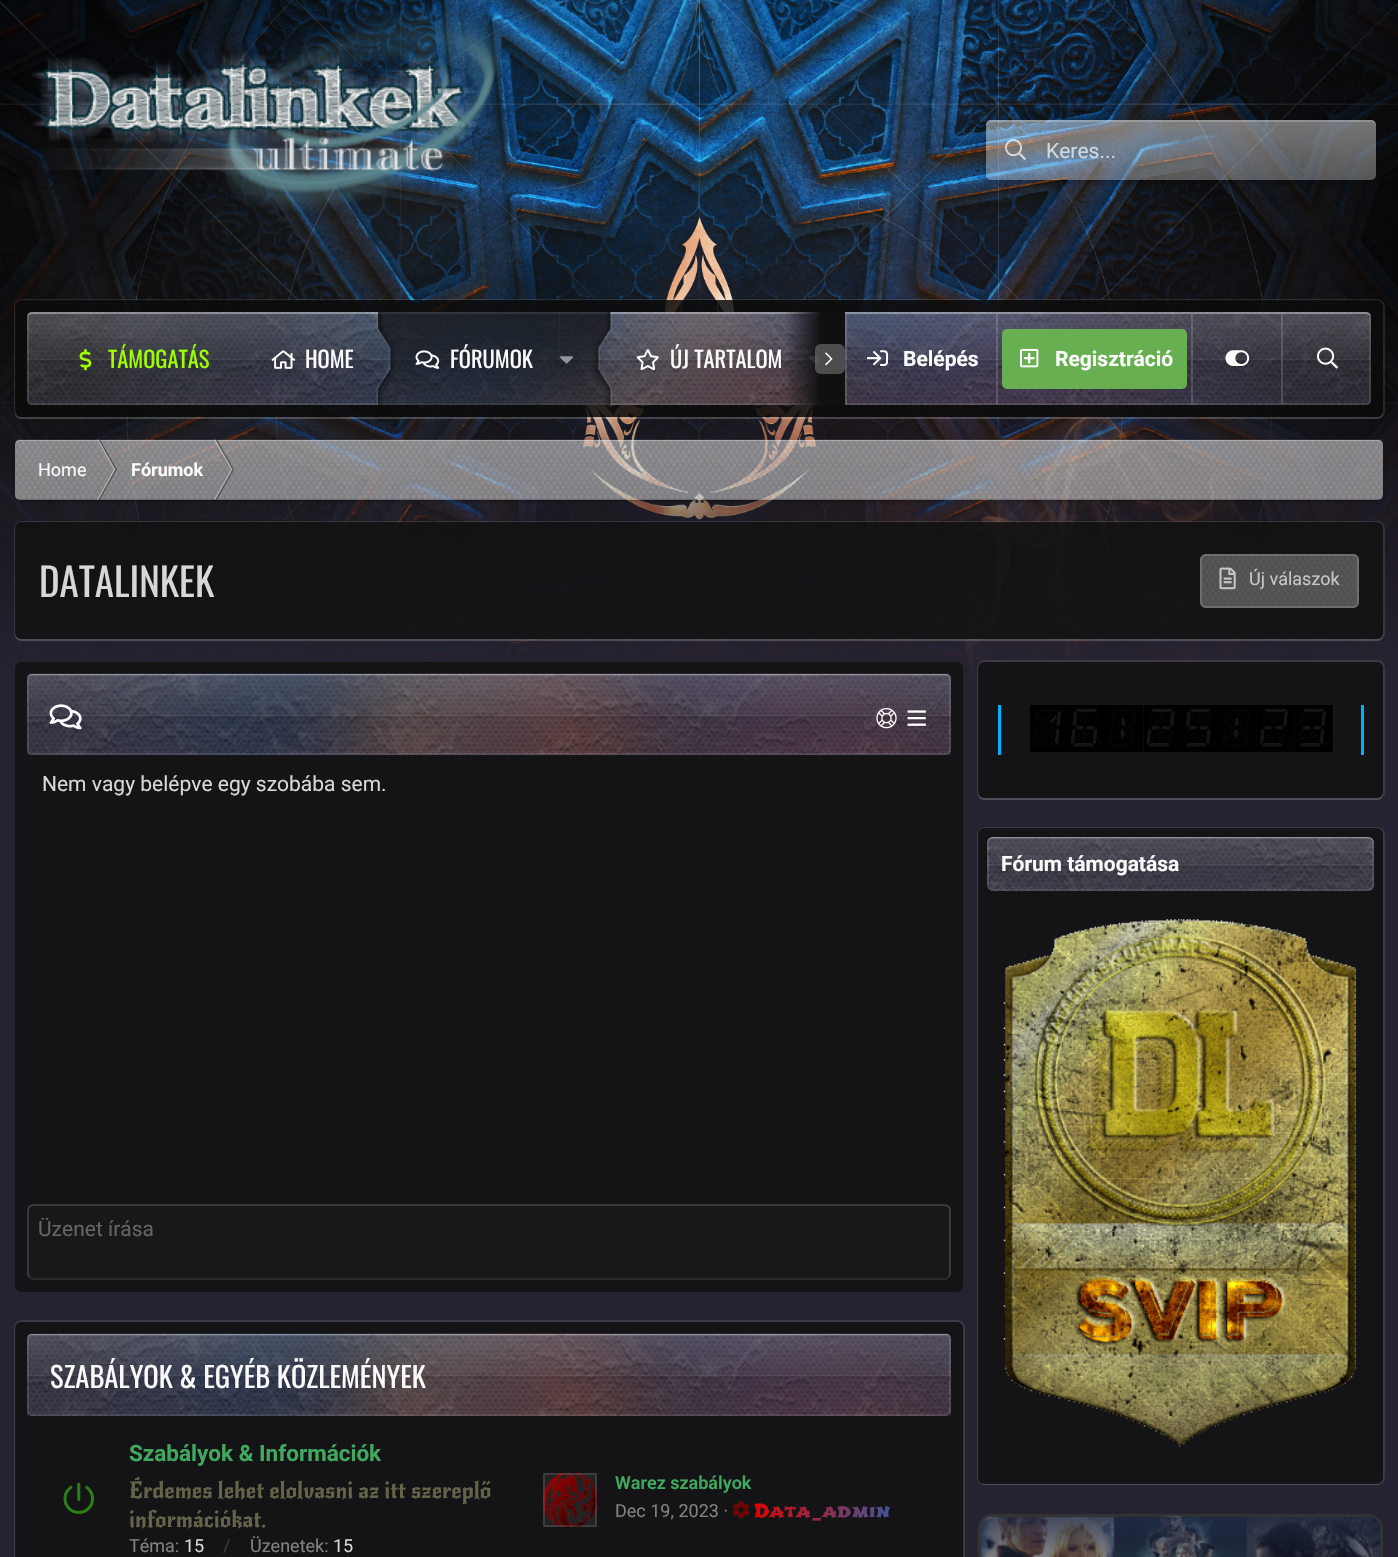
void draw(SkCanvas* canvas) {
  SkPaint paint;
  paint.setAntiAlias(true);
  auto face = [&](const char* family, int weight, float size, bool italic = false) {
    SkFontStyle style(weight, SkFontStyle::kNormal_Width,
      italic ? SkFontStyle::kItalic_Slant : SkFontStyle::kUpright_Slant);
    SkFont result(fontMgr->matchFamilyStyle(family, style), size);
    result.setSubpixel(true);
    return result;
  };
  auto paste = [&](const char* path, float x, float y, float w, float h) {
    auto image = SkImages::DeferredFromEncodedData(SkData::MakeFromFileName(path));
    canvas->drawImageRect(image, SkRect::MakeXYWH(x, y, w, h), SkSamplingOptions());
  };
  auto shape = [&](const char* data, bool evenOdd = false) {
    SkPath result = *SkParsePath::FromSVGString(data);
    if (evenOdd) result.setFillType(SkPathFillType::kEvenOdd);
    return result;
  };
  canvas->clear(0xff252332);
  paste("img/1.png", 0, 0, 1398, 699);
  paste("img/2.png", 31, 10, 468, 202);
  canvas->save();
  canvas->clipPath(shape("M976 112H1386V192H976ZM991 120H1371C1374 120 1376 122 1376 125V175C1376 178 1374 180 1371 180H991C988 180 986 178 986 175V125C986 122 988 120 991 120Z", true), true);
  paint.setColor(0x4d000000);
  paint.setMaskFilter(SkMaskFilter::MakeBlur(kNormal_SkBlurStyle, 3));
  canvas->drawRoundRect(SkRect::MakeXYWH(986, 122, 390, 60), 5, 5, paint);
  paint.setMaskFilter(nullptr);
  canvas->restore();
  {
    const SkColor colors[] = {0x6effffff, 0x4dffffff};
    const float stops[] = {0, 1};
    const SkPoint ends[] = {{1181, 120}, {1181, 180}};
    paint.setShader(SkGradientShader::MakeLinear(ends, colors, stops, 2, SkTileMode::kClamp));
    paint.setAlpha(255);
  }
  canvas->drawRoundRect(SkRect::MakeXYWH(986, 120, 390, 60), 5, 5, paint);
  paint.setShader(nullptr);
  paint.setColor(0x33ffffff);
  canvas->drawPath(shape("M990 122H1371C1373 122 1376 124 1376 126V125C1376 122 1374 120 1371 120H991C988 120 986 122 986 125V126C986 124 988 122 990 122Z"), paint);
  paste("img/3.png", 1005, 139, 21, 22);
  paint.setColor(0x1affffff);
  canvas->drawPath(shape("M15 411V413C15 416 18 419 21 419H1377C1380 419 1383 416 1383 413V411C1383 414 1380 417 1377 417H21C18 417 15 414 15 411Z"), paint);
  paint.setStroke(true);
  paint.setStrokeWidth(2);
  canvas->drawRoundRect(SkRect::MakeXYWH(15, 300, 1369, 118), 7, 7, paint);
  paint.setStroke(false);
  paint.setColor(0xd90a0a0a);
  canvas->drawRoundRect(SkRect::MakeXYWH(15, 300, 1368, 117), 6, 6, paint);
  canvas->save();
  canvas->clipPath(shape("M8 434H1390V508H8ZM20 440H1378C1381 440 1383 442 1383 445V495C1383 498 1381 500 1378 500H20C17 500 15 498 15 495V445C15 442 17 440 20 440Z", true), true);
  paint.setColor(0x4d000000);
  paint.setMaskFilter(SkMaskFilter::MakeBlur(kNormal_SkBlurStyle, 2));
  canvas->drawRoundRect(SkRect::MakeXYWH(15, 441, 1368, 60), 5, 5, paint);
  paint.setMaskFilter(nullptr);
  canvas->restore();
  paint.setColor(0x4dffffff);
  canvas->drawRoundRect(SkRect::MakeXYWH(15, 440, 1368, 60), 5, 5, paint);
  paste("img/19.png", 15, 439, 1368, 61);
  canvas->drawPath(shape("M20 441H1378C1381 441 1383 443 1383 446C1383 443 1381 440 1378 440H20C17 440 15 443 15 446C15 443 17 441 20 441Z"), paint);
  paint.setColor(0x61ffffff);
  canvas->drawPath(shape("M97 439.5H98.5L115.5 469.5H114Z"), paint);
  paint.setColor(0x66000000);
  canvas->drawPath(shape("M98.5 439.5H100L117 469.5H115.5Z"), paint);
  paint.setColor(0x61ffffff);
  canvas->drawPath(shape("M114 469.5H115.5L98.5 499.5H97Z"), paint);
  paint.setColor(0x66000000);
  canvas->drawPath(shape("M115.5 469.5H117L100 499.5H98.5Z"), paint);
  paint.setColor(0x61ffffff);
  canvas->drawPath(shape("M214 439.5H215.5L232.5 469.5H231Z"), paint);
  paint.setColor(0x66000000);
  canvas->drawPath(shape("M215.5 439.5H217L234 469.5H232.5Z"), paint);
  paint.setColor(0x61ffffff);
  canvas->drawPath(shape("M231 469.5H232.5L215.5 499.5H214Z"), paint);
  paint.setColor(0x66000000);
  canvas->drawPath(shape("M232.5 469.5H234L217 499.5H215.5Z"), paint);
  paint.setColor(0x1affffff);
  canvas->drawPath(shape("M15 633V635C15 638 18 641 21 641H1377C1380 641 1383 638 1383 635V633C1383 636 1380 639 1377 639H21C18 639 15 636 15 633Z"), paint);
  paint.setStroke(true);
  canvas->drawRoundRect(SkRect::MakeXYWH(15, 522, 1369, 118), 7, 7, paint);
  paint.setStroke(false);
  paint.setColor(0xd9101010);
  canvas->drawRoundRect(SkRect::MakeXYWH(15, 522, 1368, 117), 6, 6, paint);
  paint.setColor(0xff575757);
  canvas->drawRoundRect(SkRect::MakeXYWH(1200, 554, 159, 54), 6, 6, paint);
  paste("img/20.png", 1200, 554, 159, 52);
  paint.setStroke(true);
  paint.setColor(0xff6e6e6e);
  canvas->drawRoundRect(SkRect::MakeXYWH(1201, 555, 157, 52), 5, 5, paint);
  paste("img/21.png", 1219, 567, 17, 23);
  canvas->save();
  canvas->clipPath(shape("M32 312H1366C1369 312 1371 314 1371 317V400C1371 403 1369 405 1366 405H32C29 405 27 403 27 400V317C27 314 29 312 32 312Z"), true);
  paint.setStroke(false);
  paint.setColor(0xff262050);
  paint.setMaskFilter(SkMaskFilter::MakeBlur(kNormal_SkBlurStyle, 52.5f));
  canvas->drawRect(SkRect::MakeXYWH(-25, 260, 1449, 198), paint);
  paint.setMaskFilter(nullptr);
  canvas->restore();
  paste("img/4.png", 27, 312, 1344, 93);
  paint.setColor(0x1affffff);
  canvas->drawRoundRect(SkRect::MakeXYWH(27, 312, 1344, 93), 5, 5, paint);
  paste("img/5.png", 27, 312, 1344, 93);
  paint.setColor(0x4dffffff);
  canvas->drawPath(shape("M32 314C29 314 27 316 27 318C27 315 29 312 32 312H1366C1369 312 1371 315 1371 318C1371 316 1369 314 1366 314Z"), paint);
  paint.setStroke(true);
  paint.setColor(0x1affffff);
  canvas->drawRoundRect(SkRect::MakeXYWH(28, 313, 1342, 91), 4, 4, paint);
  paste("img/6.png", 79, 349, 13, 22);
  paste("img/7.png", 271, 350, 25, 19);
  paste("img/8.png", 376, 312, 184, 93);
  paste("img/9.png", 559, 312, 53, 93);
  paste("img/10.png", 415, 350, 25, 19);
  paste("img/11.png", 560, 356, 13, 8);
  paste("img/12.png", 636, 349, 23, 22);
  paste("img/13.png", 809, 356, 12, 8);
  paint.setStroke(false);
  {
    const SkColor colors[] = {0x00101010, 0xff101010};
    const float stops[] = {0, 0.6f};
    const SkPoint ends[] = {{785, 359}, {845, 359}};
    paint.setShader(SkGradientShader::MakeLinear(ends, colors, stops, 2, SkTileMode::kClamp));
    paint.setAlpha(255);
  }
  canvas->drawRect(SkRect::MakeXYWH(786, 312, 59, 93), paint);
  paint.setShader(nullptr);
  paint.setColor(0x40ffffff);
  canvas->drawRoundRect(SkRect::MakeXYWH(815, 344, 30, 30), 6, 6, paint);
  paste("img/14.png", 825, 352, 8, 14);
  paint.setColor(0x26ffffff);
  canvas->drawRect(SkRect::MakeXYWH(845, 314, 2, 90), paint);
  paste("img/15.png", 867, 350, 21, 16);
  canvas->drawRect(SkRect::MakeXYWH(996, 314, 2, 90), paint);
  paint.setColor(0xff67af51);
  canvas->drawRoundRect(SkRect::MakeXYWH(1002, 329, 185, 60), 5, 5, paint);
  paste("img/16.png", 1020, 348, 19, 20);
  paint.setColor(0x26ffffff);
  canvas->drawRect(SkRect::MakeXYWH(1191, 314, 2, 90), paint);
  paste("img/17.png", 1225, 350, 25, 16);
  canvas->drawRect(SkRect::MakeXYWH(1281, 314, 2, 90), paint);
  paste("img/18.png", 1317, 347, 21, 22);
  paint.setColor(0xd9101010);
  canvas->drawRoundRect(SkRect::MakeXYWH(15, 662, 948, 630), 6, 6, paint);
  paint.setColor(0xff3b3946);
  canvas->drawPath(shape("M978 792C978 796 979 800 984 800H1377C1382 800 1383 796 1383 792C1383 795 1380 798 1377 798H984C981 798 978 795 978 792Z"), paint);
  paint.setStroke(true);
  paint.setColor(0x1affffff);
  canvas->drawRoundRect(SkRect::MakeXYWH(978, 661, 406, 138), 7, 7, paint);
  paint.setStroke(false);
  paint.setColor(0xd9101010);
  canvas->drawRoundRect(SkRect::MakeXYWH(978, 662, 405, 136), 6, 6, paint);
  paint.setColor(0xff00b1ff);
  canvas->drawRect(SkRect::MakeXYWH(998, 705, 3, 50), paint);
  paint.setColor(0xff3b3947);
  canvas->drawPath(shape("M978 1478C978 1481 980 1485 984 1485H1377C1381 1485 1383 1481 1383 1478C1383 1481 1380 1484 1377 1484H984C981 1484 978 1481 978 1478Z"), paint);
  paint.setStroke(true);
  paint.setColor(0x1affffff);
  canvas->drawRoundRect(SkRect::MakeXYWH(978, 828, 406, 656), 7, 7, paint);
  paint.setStroke(false);
  paint.setColor(0xd9101010);
  canvas->drawRoundRect(SkRect::MakeXYWH(978, 828, 405, 656), 6, 6, paint);
  paint.setColor(0xff252332);
  canvas->drawRoundRect(SkRect::MakeXYWH(987, 837, 387, 54), 6, 6, paint);
  paste("img/32.png", 987, 837, 387, 54);
  paint.setColor(0x4dffffff);
  canvas->drawPath(shape("M993 838H1368C1371 838 1374 841 1374 844C1374 840 1372 837 1368 837H993C989 837 987 840 987 844C987 841 990 838 993 838Z"), paint);
  paint.setStroke(true);
  paint.setColor(0x1affffff);
  canvas->drawRoundRect(SkRect::MakeXYWH(988, 838, 385, 52), 5, 5, paint);
  paste("img/33.png", 1003, 919, 354, 528);
  canvas->save();
  canvas->clipPath(shape("M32 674H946C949 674 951 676 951 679V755H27V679C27 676 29 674 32 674Z"), true);
  paint.setStroke(false);
  paint.setColor(0xff262050);
  paint.setMaskFilter(SkMaskFilter::MakeBlur(kNormal_SkBlurStyle, 52.5f));
  canvas->drawRect(SkRect::MakeXYWH(-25, 621, 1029, 186), paint);
  paint.setMaskFilter(nullptr);
  canvas->restore();
  paste("img/22.png", 27, 673, 924, 82);
  paint.setColor(0x1affffff);
  canvas->drawRoundRect(SkRect::MakeXYWH(27, 674, 924, 81), 5, 5, paint);
  paste("img/23.png", 27, 673, 924, 82);
  paint.setColor(0x4dffffff);
  canvas->drawPath(shape("M32 675C29 675 27 677 27 680C27 677 29 674 32 674H946C949 674 951 677 951 680C951 677 949 675 946 675Z"), paint);
  paint.setStroke(true);
  paint.setColor(0x1affffff);
  canvas->drawRoundRect(SkRect::MakeXYWH(28, 675, 922, 79), 4, 4, paint);
  paste("img/24.png", 49, 704, 33, 26);
  paste("img/25.png", 876, 708, 21, 21);
  paste("img/26.png", 907, 710, 19, 16);
  paint.setStroke(false);
  paint.setColor(0xff181818);
  canvas->drawRoundRect(SkRect::MakeXYWH(27, 1205, 924, 75), 6, 6, paint);
  paint.setStroke(true);
  paint.setStrokeWidth(1.5f);
  paint.setColor(0xff2f2f2f);
  canvas->drawPath(shape("M948.5 1277C947.5 1278 946.5 1279 945 1279H33C31.5 1279 30.5 1278 29.5 1277"), paint);
  paint.setColor(0xff434343);
  canvas->drawPath(shape("M29.5 1277L28 1274V1210L29 1207C30 1206 31.5 1205.5 33 1205H945C946.5 1205.5 948 1206 949 1207L950 1210V1274L948.5 1277"), paint);
  paint.setStrokeWidth(2);
  paint.setColor(0xff3b3947);
  canvas->drawRoundRect(SkRect::MakeXYWH(15, 1321, 949, 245), 7, 7, paint);
  paint.setStroke(false);
  paint.setColor(0xd9101010);
  canvas->drawRoundRect(SkRect::MakeXYWH(15, 1322, 948, 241), 6, 6, paint);
  canvas->save();
  canvas->clipPath(shape("M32 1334H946C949 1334 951 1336 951 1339V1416H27V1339C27 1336 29 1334 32 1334Z"), true);
  paint.setColor(0xff262050);
  paint.setMaskFilter(SkMaskFilter::MakeBlur(kNormal_SkBlurStyle, 52.5f));
  canvas->drawRect(SkRect::MakeXYWH(-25, 1281, 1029, 188), paint);
  paint.setMaskFilter(nullptr);
  canvas->restore();
  paste("img/27.png", 27, 1333, 924, 83);
  paint.setColor(0x1affffff);
  canvas->drawRoundRect(SkRect::MakeXYWH(27, 1334, 924, 82), 5, 5, paint);
  paste("img/28.png", 27, 1333, 924, 83);
  paint.setColor(0x4dffffff);
  canvas->drawPath(shape("M32 1335C29 1335 27 1337 27 1340C27 1337 29 1334 32 1334H946C949 1334 951 1337 951 1340C951 1337 949 1335 946 1335Z"), paint);
  paint.setStroke(true);
  paint.setColor(0x1affffff);
  canvas->drawRoundRect(SkRect::MakeXYWH(28, 1335, 922, 80), 4, 4, paint);
  paste("img/29.png", 63, 1482, 31, 32);
  paste("img/30.png", 543, 1473, 54, 54);
  paint.setColor(0x26d7d7d7);
  canvas->drawRect(SkRect::MakeXYWH(544, 1474, 52, 52), paint);
  paste("img/31.png", 732, 1501, 18, 18);
  paint.setStroke(false);
  paint.setColor(0xff00b1ff);
  canvas->drawRect(SkRect::MakeXYWH(1361, 705, 3, 50), paint);
  paint.setStroke(true);
  paint.setStrokeWidth(3);
  paint.setColor(0xff333333);
  canvas->drawRoundRect(SkRect::MakeXYWH(979.5f, 1515.5f, 402, 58), 13.5f, 13.5f, paint);
  paste("img/34.png", 981, 1517, 134, 40);
  paint.setStroke(false);
  {
    const SkColor colors[] = {0xcc202a47, 0x00202a47};
    const float stops[] = {0, 1};
    const SkPoint ends[] = {{1048, 1517}, {1048, 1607}};
    paint.setShader(SkGradientShader::MakeLinear(ends, colors, stops, 2, SkTileMode::kClamp));
    paint.setAlpha(255);
  }
  canvas->drawPath(shape("M993 1517H1115V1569H981V1529C981 1522.5 986.5 1517 993 1517Z"), paint);
  paste("img/35.png", 1114, 1516, 133, 41);
  {
    const SkColor colors[] = {0xcc202a47, 0x00202a47};
    const float stops[] = {0, 1};
    const SkPoint ends[] = {{1181, 1517}, {1181, 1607}};
    paint.setShader(SkGradientShader::MakeLinear(ends, colors, stops, 2, SkTileMode::kClamp));
    paint.setAlpha(255);
  }
  canvas->drawRect(SkRect::MakeXYWH(1115, 1517, 132, 40), paint);
  paste("img/36.png", 1246, 1517, 134, 40);
  {
    const SkColor colors[] = {0xcc202a47, 0x00202a47};
    const float stops[] = {0, 1};
    const SkPoint ends[] = {{1313, 1517}, {1313, 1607}};
    paint.setShader(SkGradientShader::MakeLinear(ends, colors, stops, 2, SkTileMode::kClamp));
    paint.setAlpha(255);
  }
  canvas->drawPath(shape("M1247 1517H1368C1374.5 1517 1380 1522.5 1380 1529V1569H1247Z"), paint);
  auto f0 = face("Roboto", 400, 21);
  paint.setShader(nullptr);
  paint.setColor(0xffd3d8de);
  canvas->drawString("Keres...", 1046, 158, f0, paint);
  auto f1 = face("Oswald", 400, 22.5f);
  paint.setColor(0xff9fff00);
  canvas->drawString("TÁMOGATÁS", 108, 368, f1, paint);
  paint.setColor(0xfffafafa);
  {
    const struct { const char* s; float x, y; } items[] = {
      {"HOME", 305, 368},
      {"FÓRUMOK", 450, 368},
      {"ÚJ TARTALOM", 670, 368},
    };
    for (auto [s, x, y] : items) {
      canvas->drawString(s, x, y, f1, paint);
    }
  }
  auto f2 = face("Roboto", 700, 21);
  canvas->drawString("Belépés", 903, 366, f2, paint);
  canvas->drawString("Regisztráció", 1055, 366, f2, paint);
  auto f3 = face("Roboto", 400, 18);
  canvas->drawString("Home", 38, 476, f3, paint);
  auto f4 = face("Roboto", 700, 18);
  canvas->drawString("Fórumok", 131, 476, f4, paint);
  auto f5 = face("Oswald", 400, 39);
  paint.setColor(0xffd7d7d7);
  canvas->drawString("DATALINKEK", 39, 597, f5, paint);
  paint.setColor(0xffc7c7c7);
  canvas->drawString("Új válaszok", 1249, 585, f3, paint);
  paint.setColor(0xffd7d7d7);
  canvas->drawString("Nem vagy belépve egy szobába sem.", 42, 791, f0, paint);
  paint.setColor(0xff646464);
  canvas->drawString("Üzenet írása", 38, 1236, f0, paint);
  auto f6 = face("Oswald", 400, 28.5f);
  paint.setColor(0xfffafafa);
  canvas->drawString("SZABÁLYOK & EGYÉB KÖZLEMÉNYEK", 50, 1388, f6, paint);
  auto f7 = face("Roboto", 700, 22.5f);
  paint.setColor(0xff41a85f);
  canvas->drawString("Szabályok & Információk", 129, 1461, f7, paint);
  auto f8 = face("New Rocker", 400, 22.5f);
  paint.setColor(0xff65644a);
  canvas->drawString("Érdemes lehet elolvasni az itt szereplő", 129, 1498, f8, paint);
  canvas->drawString("információkat.", 129, 1527, f8, paint);
  paint.setColor(0xff818181);
  canvas->drawString("Téma:", 129, 1552, f3, paint);
  paint.setColor(0xffd7d7d7);
  canvas->drawString("15", 184, 1552, f3, paint);
  paint.setColor(0xff3a3a3c);
  canvas->drawString("/", 223, 1552, f3, paint);
  paint.setColor(0xff818181);
  canvas->drawString("Üzenetek:", 250, 1552, f3, paint);
  paint.setColor(0xffd7d7d7);
  canvas->drawString("15", 333, 1552, f3, paint);
  auto f9 = face("Roboto", 600, 18);
  paint.setColor(0xff41a85f);
  canvas->drawString("Warez szabályok", 615, 1489, f9, paint);
  paint.setColor(0xff818181);
  canvas->drawString("Dec 19, 2023 ·", 615, 1517, f3, paint);
  auto f10 = face("Shojumaru", 400, 18);
  {
    const SkColor colors[] = {0xffdd0303, 0xff425494};
    const float stops[] = {0, 1};
    const SkPoint ends[] = {{754, 1511}, {890, 1511}};
    paint.setShader(SkGradientShader::MakeLinear(ends, colors, stops, 2, SkTileMode::kClamp));
    paint.setAlpha(255);
  }
  canvas->drawString("Data_admin", 754, 1517, f10, paint);
  auto f11 = face("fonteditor", 400, 69.5f);
  paint.setShader(nullptr);
  paint.setColor(0xff000000);
  canvas->drawString("16:25:23", 1030, 752, f11, paint);
  paint.setColor(0xfffafafa);
  canvas->drawString("Fórum támogatása", 1001, 871, f2, paint);
}
